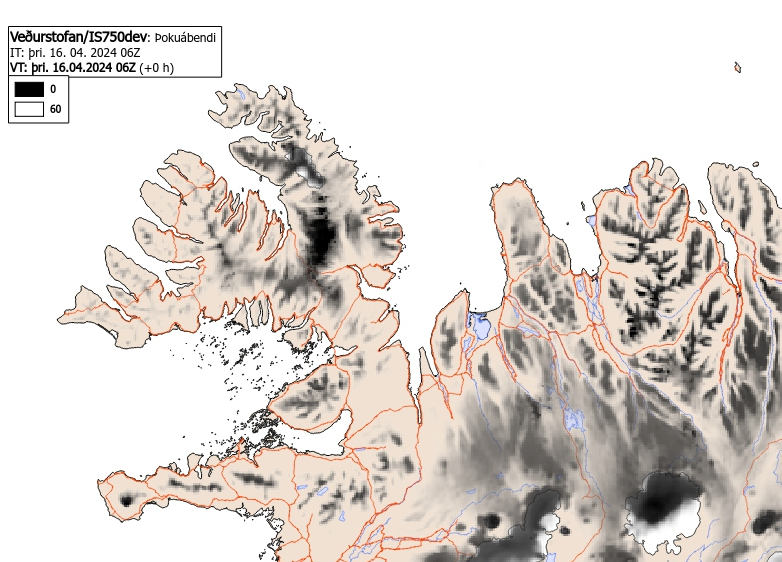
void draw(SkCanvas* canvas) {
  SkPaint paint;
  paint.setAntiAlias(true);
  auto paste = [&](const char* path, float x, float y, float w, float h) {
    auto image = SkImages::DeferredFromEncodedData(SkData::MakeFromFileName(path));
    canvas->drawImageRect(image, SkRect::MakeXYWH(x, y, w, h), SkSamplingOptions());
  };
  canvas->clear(0xffffffff);
  paste("img/1.png", 8, 26, 774, 536);
}
